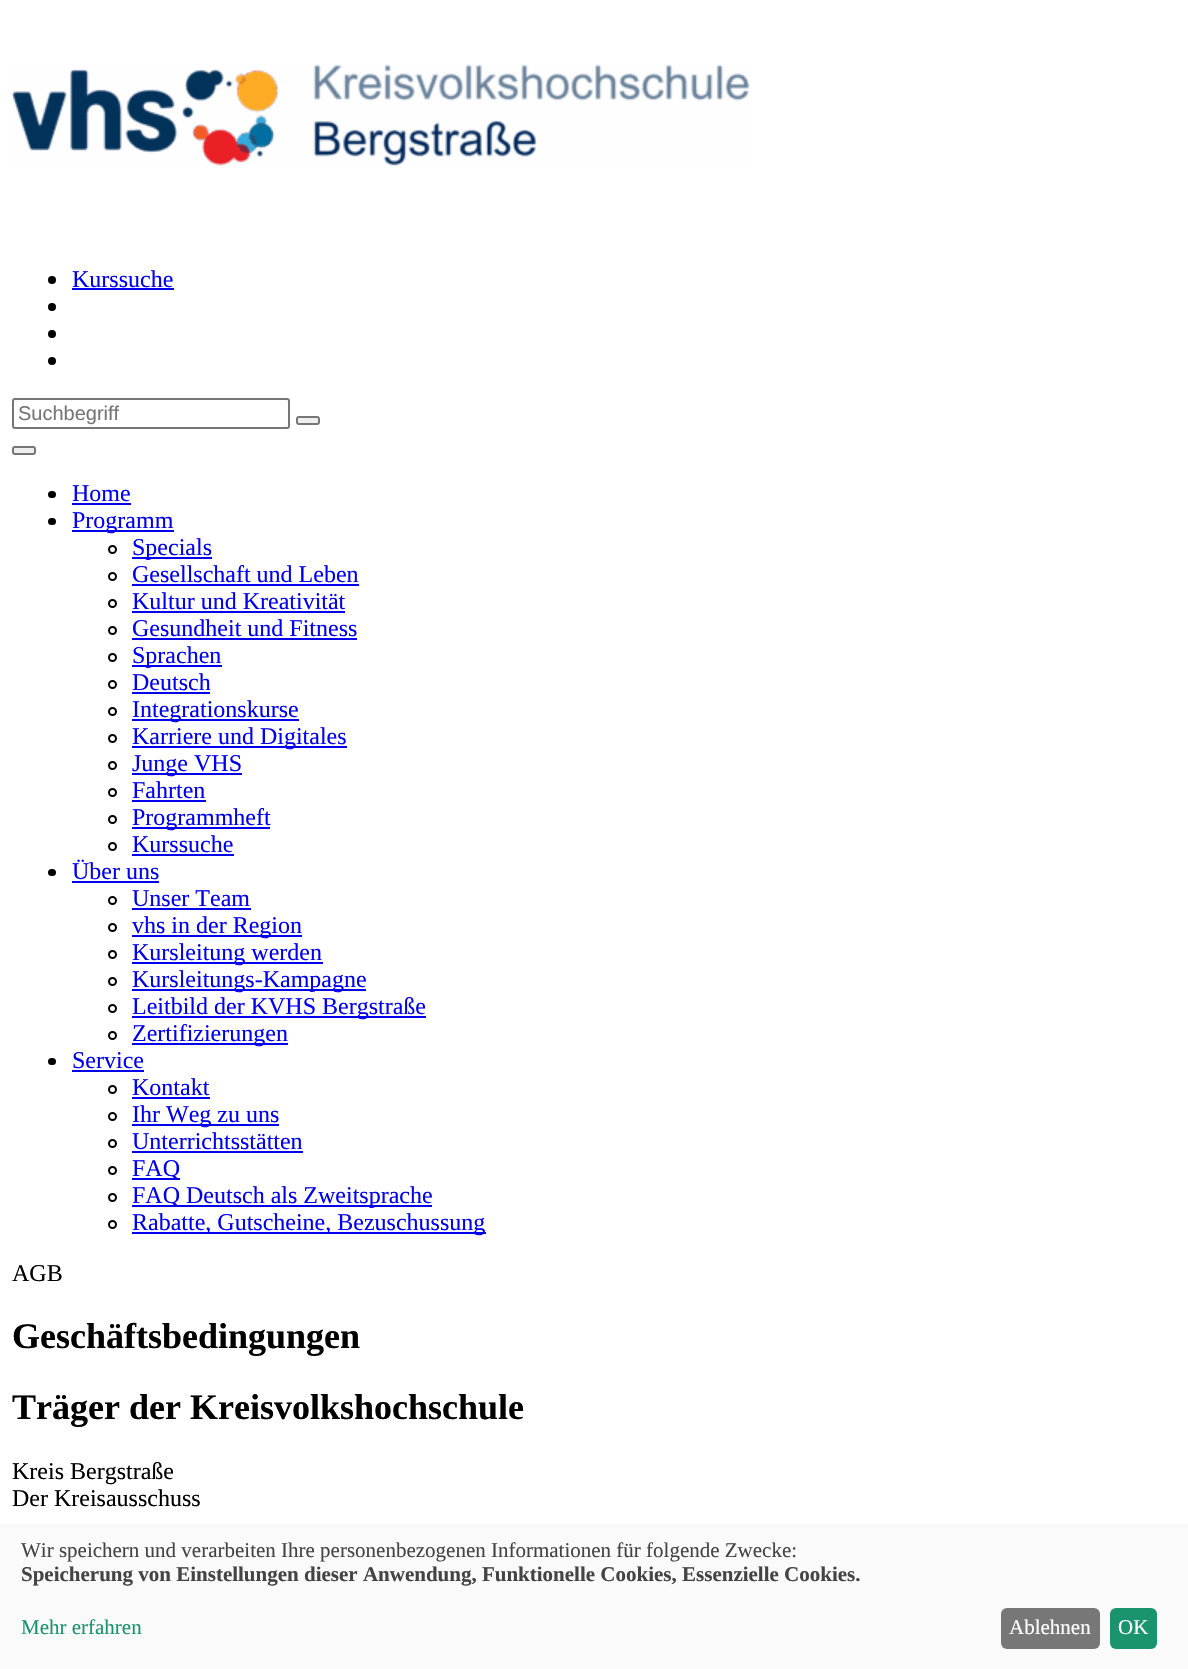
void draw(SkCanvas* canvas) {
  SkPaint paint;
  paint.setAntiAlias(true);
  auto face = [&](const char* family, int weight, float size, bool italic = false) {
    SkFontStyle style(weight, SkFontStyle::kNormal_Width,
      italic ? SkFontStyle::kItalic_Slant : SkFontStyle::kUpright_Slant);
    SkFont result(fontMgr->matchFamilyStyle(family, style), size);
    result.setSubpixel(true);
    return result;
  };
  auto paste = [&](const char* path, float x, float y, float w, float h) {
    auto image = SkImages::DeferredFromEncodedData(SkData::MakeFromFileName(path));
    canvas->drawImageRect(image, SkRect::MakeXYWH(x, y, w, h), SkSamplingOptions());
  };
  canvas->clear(0xffffffff);
  paste("img/1.png", 12, 64, 738, 102);
  paint.setColor(0xff000000);
  canvas->drawCircle(52, 280, 4, paint);
  paint.setColor(0xff0000ee);
  canvas->drawRect(SkRect::MakeXYWH(72, 288, 102, 2), paint);
  paint.setColor(0xff000000);
  canvas->drawCircle(52, 307, 4, paint);
  canvas->drawCircle(52, 334, 4, paint);
  canvas->drawCircle(52, 361, 4, paint);
  paint.setStroke(true);
  paint.setStrokeWidth(2);
  paint.setColor(0xff767676);
  canvas->drawRoundRect(SkRect::MakeXYWH(13, 399, 276, 29), 2, 2, paint);
  paint.setStroke(false);
  paint.setColor(0xffefefef);
  canvas->drawRoundRect(SkRect::MakeXYWH(297, 417, 22, 7), 2, 2, paint);
  paint.setStroke(true);
  paint.setColor(0xff767676);
  canvas->drawRoundRect(SkRect::MakeXYWH(297, 417, 22, 7), 2, 2, paint);
  paint.setStroke(false);
  paint.setColor(0xffefefef);
  canvas->drawRoundRect(SkRect::MakeXYWH(13, 447, 22, 7), 2, 2, paint);
  paint.setStroke(true);
  paint.setColor(0xff767676);
  canvas->drawRoundRect(SkRect::MakeXYWH(13, 447, 22, 7), 2, 2, paint);
  paint.setStroke(false);
  paint.setColor(0xff000000);
  canvas->drawRoundRect(SkRect::MakeXYWH(48, 491, 8, 7), 3.5f, 3.5f, paint);
  paint.setColor(0xff0000ee);
  canvas->drawRect(SkRect::MakeXYWH(72, 503, 59, 2), paint);
  paint.setColor(0xff000000);
  canvas->drawRoundRect(SkRect::MakeXYWH(48, 518, 8, 7), 3.5f, 3.5f, paint);
  paint.setColor(0xff0000ee);
  canvas->drawRect(SkRect::MakeXYWH(72, 530, 102, 2), paint);
  paint.setStroke(true);
  paint.setColor(0xff000000);
  canvas->drawCircle(112.5f, 549.5f, 3.5f, paint);
  paint.setStroke(false);
  paint.setColor(0xff0000ee);
  canvas->drawRect(SkRect::MakeXYWH(132, 557, 80, 2), paint);
  paint.setStroke(true);
  paint.setColor(0xff000000);
  canvas->drawCircle(112.5f, 576.5f, 3.5f, paint);
  paint.setStroke(false);
  paint.setColor(0xff0000ee);
  canvas->drawRect(SkRect::MakeXYWH(132, 584, 227, 2), paint);
  paint.setStroke(true);
  paint.setColor(0xff000000);
  canvas->drawCircle(112.5f, 603.5f, 3.5f, paint);
  paint.setStroke(false);
  paint.setColor(0xff0000ee);
  canvas->drawRect(SkRect::MakeXYWH(132, 611, 213, 2), paint);
  paint.setStroke(true);
  paint.setColor(0xff000000);
  canvas->drawCircle(112.5f, 630.5f, 3.5f, paint);
  paint.setStroke(false);
  paint.setColor(0xff0000ee);
  canvas->drawRect(SkRect::MakeXYWH(132, 638, 225, 2), paint);
  paint.setStroke(true);
  paint.setColor(0xff000000);
  canvas->drawCircle(112.5f, 657.5f, 3.5f, paint);
  paint.setStroke(false);
  paint.setColor(0xff0000ee);
  canvas->drawRect(SkRect::MakeXYWH(132, 665, 90, 2), paint);
  paint.setStroke(true);
  paint.setColor(0xff000000);
  canvas->drawCircle(112.5f, 684.5f, 3.5f, paint);
  paint.setStroke(false);
  paint.setColor(0xff0000ee);
  canvas->drawRect(SkRect::MakeXYWH(132, 692, 78, 2), paint);
  paint.setStroke(true);
  paint.setColor(0xff000000);
  canvas->drawCircle(112.5f, 711.5f, 3.5f, paint);
  paint.setStroke(false);
  paint.setColor(0xff0000ee);
  canvas->drawRect(SkRect::MakeXYWH(132, 719, 167, 2), paint);
  paint.setStroke(true);
  paint.setColor(0xff000000);
  canvas->drawCircle(112.5f, 738.5f, 3.5f, paint);
  paint.setStroke(false);
  paint.setColor(0xff0000ee);
  canvas->drawRect(SkRect::MakeXYWH(132, 746, 215, 2), paint);
  paint.setStroke(true);
  paint.setColor(0xff000000);
  canvas->drawCircle(112.5f, 765.5f, 3.5f, paint);
  paint.setStroke(false);
  paint.setColor(0xff0000ee);
  canvas->drawRect(SkRect::MakeXYWH(132, 773, 110, 2), paint);
  paint.setStroke(true);
  paint.setColor(0xff000000);
  canvas->drawCircle(112.5f, 792.5f, 3.5f, paint);
  paint.setStroke(false);
  paint.setColor(0xff0000ee);
  canvas->drawRect(SkRect::MakeXYWH(132, 800, 74, 2), paint);
  paint.setStroke(true);
  paint.setColor(0xff000000);
  canvas->drawCircle(112.5f, 819.5f, 3.5f, paint);
  paint.setStroke(false);
  paint.setColor(0xff0000ee);
  canvas->drawRect(SkRect::MakeXYWH(132, 827, 138, 2), paint);
  paint.setStroke(true);
  paint.setColor(0xff000000);
  canvas->drawCircle(112.5f, 846.5f, 3.5f, paint);
  paint.setStroke(false);
  paint.setColor(0xff0000ee);
  canvas->drawRect(SkRect::MakeXYWH(132, 854, 102, 2), paint);
  paint.setColor(0xff000000);
  canvas->drawRoundRect(SkRect::MakeXYWH(48, 869, 8, 7), 3.5f, 3.5f, paint);
  paint.setColor(0xff0000ee);
  canvas->drawRect(SkRect::MakeXYWH(72, 881, 87, 2), paint);
  paint.setStroke(true);
  paint.setColor(0xff000000);
  canvas->drawCircle(112.5f, 900.5f, 3.5f, paint);
  paint.setStroke(false);
  paint.setColor(0xff0000ee);
  canvas->drawRect(SkRect::MakeXYWH(132, 908, 119, 2), paint);
  paint.setStroke(true);
  paint.setColor(0xff000000);
  canvas->drawCircle(112.5f, 927.5f, 3.5f, paint);
  paint.setStroke(false);
  paint.setColor(0xff0000ee);
  canvas->drawRect(SkRect::MakeXYWH(132, 935, 170, 2), paint);
  paint.setStroke(true);
  paint.setColor(0xff000000);
  canvas->drawCircle(112.5f, 954.5f, 3.5f, paint);
  paint.setStroke(false);
  paint.setColor(0xff0000ee);
  canvas->drawRect(SkRect::MakeXYWH(132, 962, 191, 2), paint);
  paint.setStroke(true);
  paint.setColor(0xff000000);
  canvas->drawCircle(112.5f, 981.5f, 3.5f, paint);
  paint.setStroke(false);
  paint.setColor(0xff0000ee);
  canvas->drawRect(SkRect::MakeXYWH(132, 989, 234, 2), paint);
  paint.setStroke(true);
  paint.setColor(0xff000000);
  canvas->drawCircle(112.5f, 1008.5f, 3.5f, paint);
  paint.setStroke(false);
  paint.setColor(0xff0000ee);
  canvas->drawRect(SkRect::MakeXYWH(132, 1016, 294, 2), paint);
  paint.setStroke(true);
  paint.setColor(0xff000000);
  canvas->drawCircle(112.5f, 1035.5f, 3.5f, paint);
  paint.setStroke(false);
  paint.setColor(0xff0000ee);
  canvas->drawRect(SkRect::MakeXYWH(132, 1043, 156, 2), paint);
  paint.setColor(0xff000000);
  canvas->drawRoundRect(SkRect::MakeXYWH(48, 1058, 8, 7), 3.5f, 3.5f, paint);
  paint.setColor(0xff0000ee);
  canvas->drawRect(SkRect::MakeXYWH(72, 1070, 72, 2), paint);
  paint.setStroke(true);
  paint.setColor(0xff000000);
  canvas->drawCircle(112.5f, 1089.5f, 3.5f, paint);
  paint.setStroke(false);
  paint.setColor(0xff0000ee);
  canvas->drawRect(SkRect::MakeXYWH(132, 1097, 78, 2), paint);
  paint.setStroke(true);
  paint.setColor(0xff000000);
  canvas->drawCircle(112.5f, 1116.5f, 3.5f, paint);
  paint.setStroke(false);
  paint.setColor(0xff0000ee);
  canvas->drawRect(SkRect::MakeXYWH(132, 1124, 147, 2), paint);
  paint.setStroke(true);
  paint.setColor(0xff000000);
  canvas->drawCircle(112.5f, 1143.5f, 3.5f, paint);
  paint.setStroke(false);
  paint.setColor(0xff0000ee);
  canvas->drawRect(SkRect::MakeXYWH(132, 1151, 171, 2), paint);
  paint.setStroke(true);
  paint.setColor(0xff000000);
  canvas->drawCircle(112.5f, 1170.5f, 3.5f, paint);
  paint.setStroke(false);
  paint.setColor(0xff0000ee);
  canvas->drawRect(SkRect::MakeXYWH(132, 1178, 48, 2), paint);
  paint.setStroke(true);
  paint.setColor(0xff000000);
  canvas->drawCircle(112.5f, 1197.5f, 3.5f, paint);
  paint.setStroke(false);
  paint.setColor(0xff0000ee);
  canvas->drawRect(SkRect::MakeXYWH(132, 1205, 300, 2), paint);
  paint.setStroke(true);
  paint.setColor(0xff000000);
  canvas->drawCircle(112.5f, 1224.5f, 3.5f, paint);
  paint.setStroke(false);
  paint.setColor(0xff0000ee);
  canvas->drawRect(SkRect::MakeXYWH(132, 1232, 354, 2), paint);
  paint.setColor(0xfffafafa);
  canvas->drawRect(SkRect::MakeXYWH(0, 1524, 1188, 145), paint);
  paint.setColor(0xff777777);
  canvas->drawRoundRect(SkRect::MakeXYWH(1001, 1608, 99, 41), 6, 6, paint);
  paint.setColor(0xff1a936f);
  canvas->drawRoundRect(SkRect::MakeXYWH(1110, 1608, 47, 41), 6, 6, paint);
  auto f0 = face("Liberation Serif", 400, 24);
  paint.setColor(0xff0000ee);
  canvas->drawString("Kurssuche", 72, 287, f0, paint);
  auto f1 = face("Liberation Sans", 400, 20);
  paint.setColor(0xff757575);
  canvas->drawString("Suchbegriff", 18, 420, f1, paint);
  paint.setColor(0xff0000ee);
  {
    const struct { const char* s; float x, y; } items[] = {
      {"Home", 72, 501},
      {"Programm", 72, 528},
      {"Specials", 132, 555},
      {"Gesellschaft und Leben", 132, 582},
      {"Kultur und Kreativität", 132, 609},
      {"Gesundheit und Fitness", 132, 636},
      {"Sprachen", 132, 663},
      {"Deutsch", 132, 690},
      {"Integrationskurse", 132, 717},
      {"Karriere und Digitales", 132, 744},
      {"Junge VHS", 132, 771},
      {"Fahrten", 132, 798},
      {"Programmheft", 132, 825},
      {"Kurssuche", 132, 852},
      {"Über uns", 72, 879},
      {"Unser Team", 132, 906},
      {"vhs in der Region", 132, 933},
      {"Kursleitung werden", 132, 960},
      {"Kursleitungs-Kampagne", 132, 987},
      {"Leitbild der KVHS Bergstraße", 132, 1014},
      {"Zertifizierungen", 132, 1041},
      {"Service", 72, 1068},
      {"Kontakt", 132, 1095},
      {"Ihr Weg zu uns", 132, 1122},
      {"Unterrichtsstätten", 132, 1149},
      {"FAQ", 132, 1176},
      {"FAQ Deutsch als Zweitsprache", 132, 1203},
      {"Rabatte, Gutscheine, Bezuschussung", 132, 1230},
    };
    for (auto [s, x, y] : items) {
      canvas->drawString(s, x, y, f0, paint);
    }
  }
  paint.setColor(0xff000000);
  canvas->drawString("AGB", 12, 1281, f0, paint);
  auto f2 = face("Liberation Serif", 700, 36);
  canvas->drawString("Geschäftsbedingungen", 12, 1348, f2, paint);
  canvas->drawString("Träger der Kreisvolkshochschule", 12, 1419, f2, paint);
  canvas->drawString("Kreis Bergstraße", 12, 1479, f0, paint);
  canvas->drawString("Der Kreisausschuss", 12, 1506, f0, paint);
  auto f3 = face("Liberation Serif", 400, 21);
  paint.setColor(0xff444444);
  canvas->drawString("Wir speichern und verarbeiten Ihre personenbezogenen Informationen für folgende Zwecke:", 21, 1557, f3, paint);
  auto f4 = face("Liberation Serif", 700, 21);
  canvas->drawString("Speicherung von Einstellungen dieser Anwendung, Funktionelle Cookies, Essenzielle Cookies.", 21, 1581, f4, paint);
  paint.setColor(0xff1a936f);
  canvas->drawString("Mehr erfahren", 21, 1634, f3, paint);
  paint.setColor(0xffffffff);
  canvas->drawString("Ablehnen", 1009, 1634, f3, paint);
  canvas->drawString("OK", 1118, 1634, f3, paint);
}
